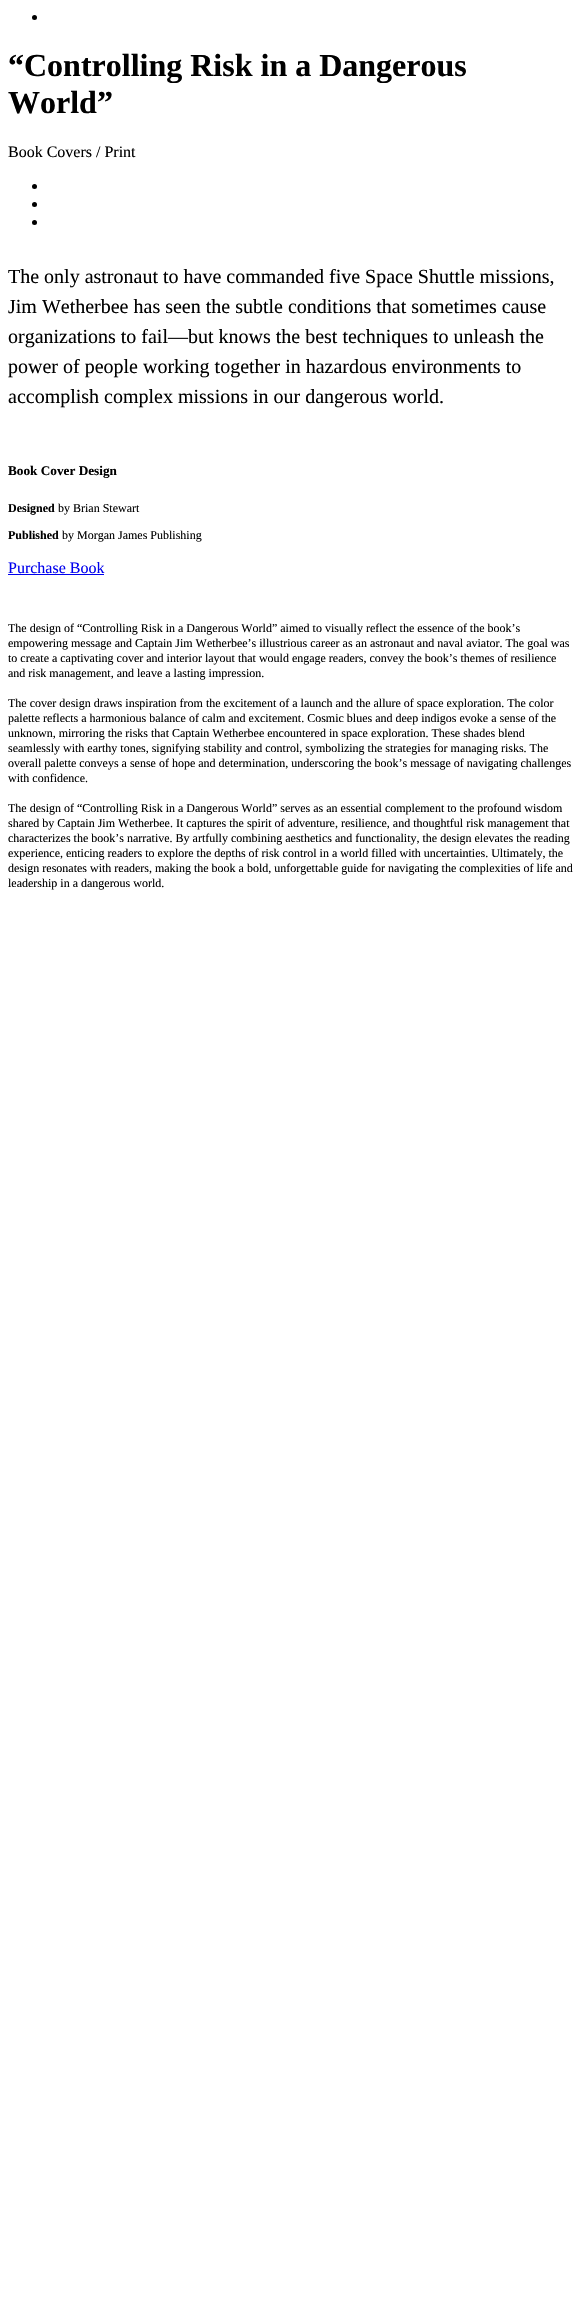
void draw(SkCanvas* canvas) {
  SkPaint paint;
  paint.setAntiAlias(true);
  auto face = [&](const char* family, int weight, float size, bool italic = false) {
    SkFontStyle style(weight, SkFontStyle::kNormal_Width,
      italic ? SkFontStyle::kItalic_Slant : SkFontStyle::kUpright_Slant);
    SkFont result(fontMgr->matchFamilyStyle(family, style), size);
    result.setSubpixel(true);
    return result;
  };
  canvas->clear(0xffffffff);
  paint.setColor(0xff000000);
  canvas->drawCircle(34.5f, 17.5f, 2.5f, paint);
  canvas->drawCircle(34.5f, 186.5f, 2.5f, paint);
  canvas->drawCircle(34.5f, 204.5f, 2.5f, paint);
  canvas->drawCircle(34.5f, 222.5f, 2.5f, paint);
  paint.setColor(0xff0000ee);
  canvas->drawRect(SkRect::MakeXYWH(8, 574, 96, 1), paint);
  auto f0 = face("Liberation Serif", 700, 32);
  paint.setColor(0xff000000);
  canvas->drawString("“Controlling Risk in a Dangerous", 8, 76, f0, paint);
  canvas->drawString("World”", 8, 113, f0, paint);
  auto f1 = face("Liberation Serif", 400, 16);
  canvas->drawString("Book Covers / Print", 8, 157, f1, paint);
  auto f2 = face("Liberation Serif", 400, 20);
  {
    const struct { const char* s; float x, y; } items[] = {
      {"The only astronaut to have commanded five Space Shuttle missions,", 8, 283},
      {"Jim Wetherbee has seen the subtle conditions that sometimes cause", 8, 313},
      {"organizations to fail—but knows the best techniques to unleash the", 8, 343},
      {"power of people working together in hazardous environments to", 8, 373},
      {"accomplish complex missions in our dangerous world.", 8, 403},
    };
    for (auto [s, x, y] : items) {
      canvas->drawString(s, x, y, f2, paint);
    }
  }
  auto f3 = face("Liberation Serif", 700, 13.25f);
  canvas->drawString("Book Cover Design", 8, 475, f3, paint);
  auto f4 = face("Liberation Serif", 700, 12);
  canvas->drawString("Designed", 8, 512, f4, paint);
  auto f5 = face("Liberation Serif", 400, 12);
  canvas->drawString("by Brian Stewart", 58, 512, f5, paint);
  canvas->drawString("Published", 8, 539, f4, paint);
  canvas->drawString("by Morgan James Publishing", 62, 539, f5, paint);
  paint.setColor(0xff0000ee);
  canvas->drawString("Purchase Book", 8, 573, f1, paint);
  paint.setColor(0xff000000);
  {
    const struct { const char* s; float x, y; } items[] = {
      {"The design of “Controlling Risk in a Dangerous World” aimed to visually reflect the essence of the book’s", 8, 632},
      {"empowering message and Captain Jim Wetherbee’s illustrious career as an astronaut and naval aviator. The goal was", 8, 647},
      {"to create a captivating cover and interior layout that would engage readers, convey the book’s themes of resilience", 8, 662},
      {"and risk management, and leave a lasting impression.", 8, 677},
      {"The cover design draws inspiration from the excitement of a launch and the allure of space exploration. The color", 8, 707},
      {"palette reflects a harmonious balance of calm and excitement. Cosmic blues and deep indigos evoke a sense of the", 8, 722},
      {"unknown, mirroring the risks that Captain Wetherbee encountered in space exploration. These shades blend", 8, 737},
      {"seamlessly with earthy tones, signifying stability and control, symbolizing the strategies for managing risks. The", 8, 752},
      {"overall palette conveys a sense of hope and determination, underscoring the book’s message of navigating challenges", 8, 767},
      {"with confidence.", 8, 782},
      {"The design of “Controlling Risk in a Dangerous World” serves as an essential complement to the profound wisdom", 8, 812},
      {"shared by Captain Jim Wetherbee. It captures the spirit of adventure, resilience, and thoughtful risk management that", 8, 827},
      {"characterizes the book’s narrative. By artfully combining aesthetics and functionality, the design elevates the reading", 8, 842},
      {"experience, enticing readers to explore the depths of risk control in a world filled with uncertainties. Ultimately, the", 8, 857},
      {"design resonates with readers, making the book a bold, unforgettable guide for navigating the complexities of life and", 8, 872},
      {"leadership in a dangerous world.", 8, 887},
    };
    for (auto [s, x, y] : items) {
      canvas->drawString(s, x, y, f5, paint);
    }
  }
}
